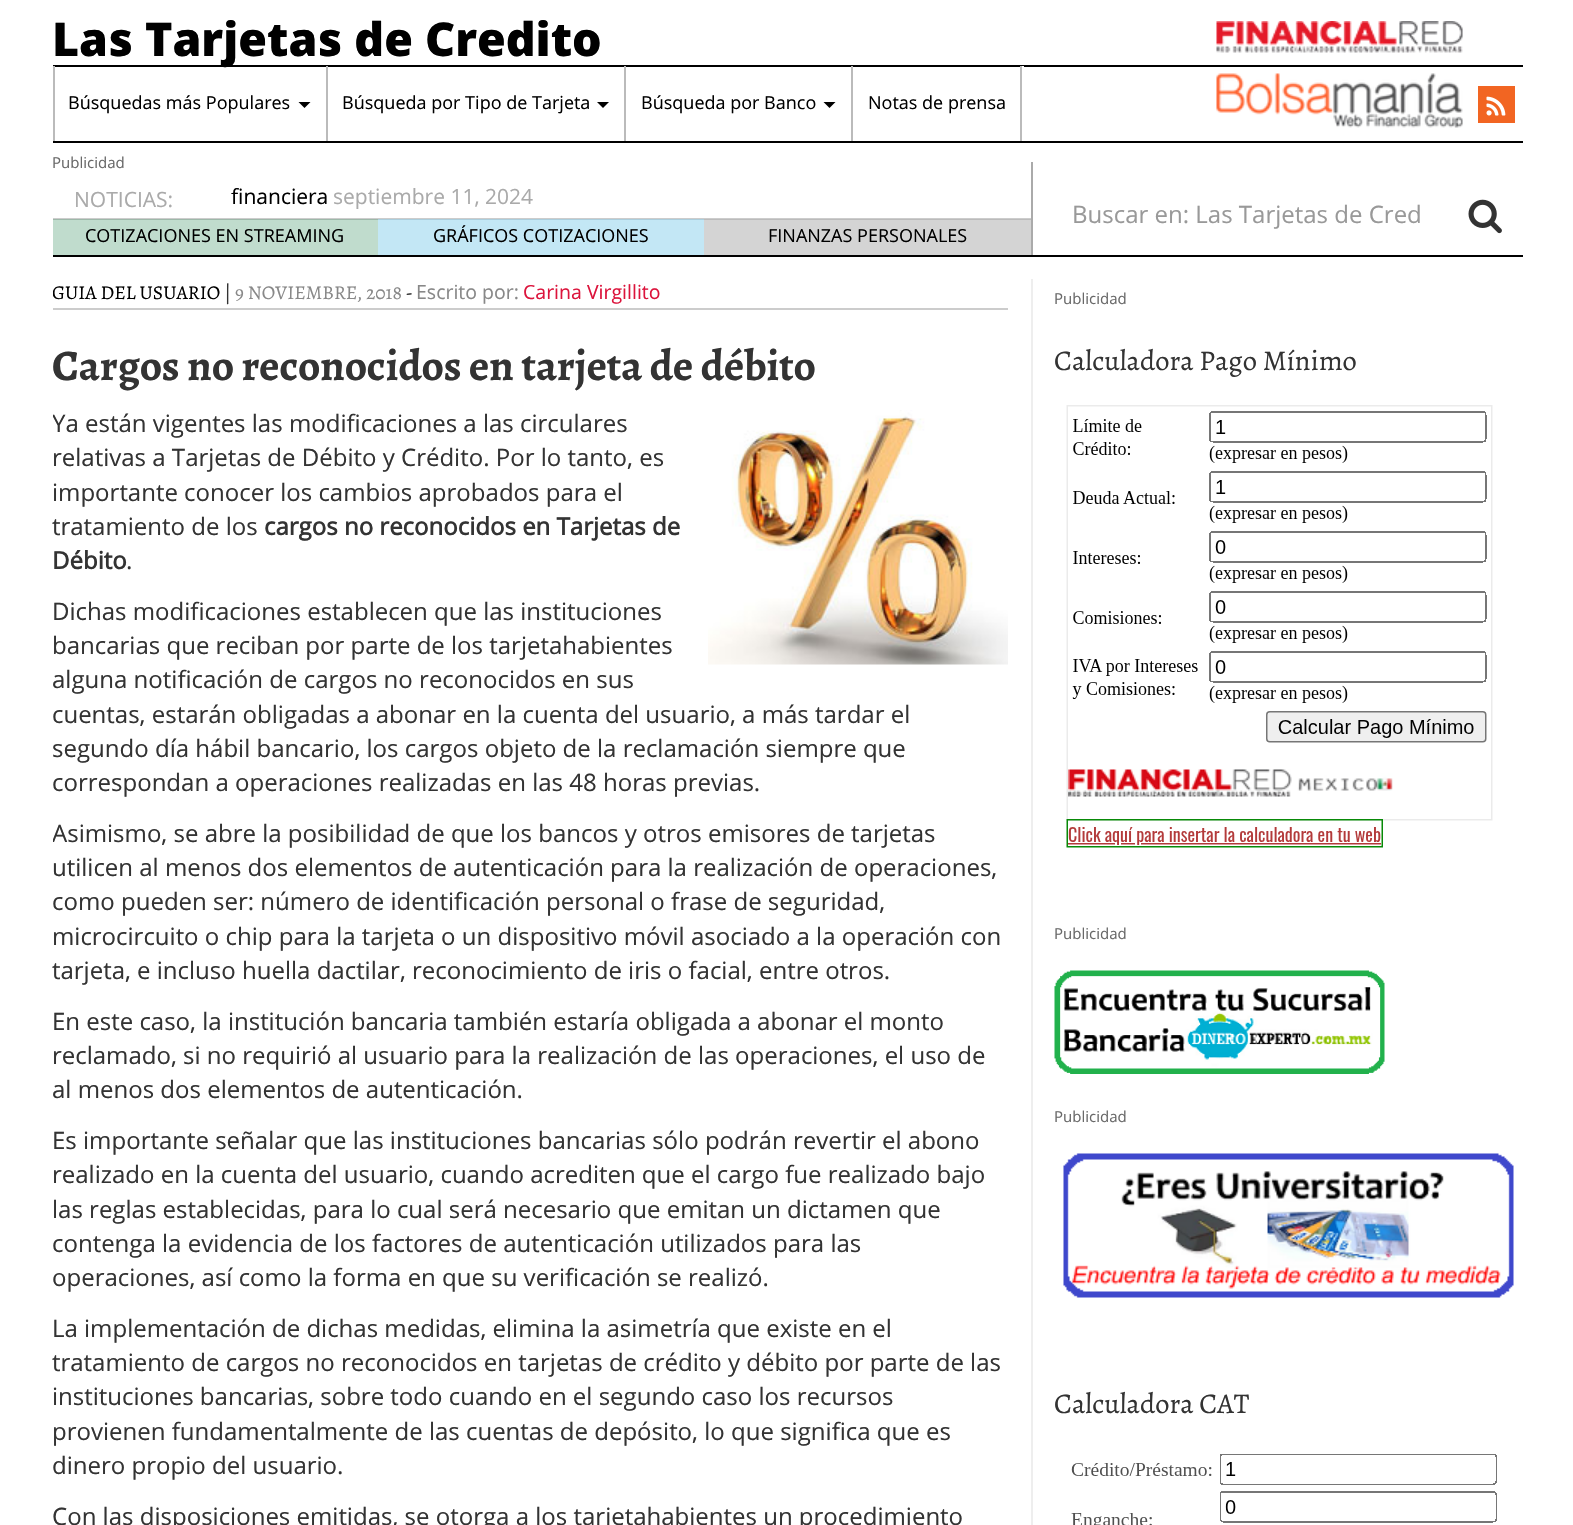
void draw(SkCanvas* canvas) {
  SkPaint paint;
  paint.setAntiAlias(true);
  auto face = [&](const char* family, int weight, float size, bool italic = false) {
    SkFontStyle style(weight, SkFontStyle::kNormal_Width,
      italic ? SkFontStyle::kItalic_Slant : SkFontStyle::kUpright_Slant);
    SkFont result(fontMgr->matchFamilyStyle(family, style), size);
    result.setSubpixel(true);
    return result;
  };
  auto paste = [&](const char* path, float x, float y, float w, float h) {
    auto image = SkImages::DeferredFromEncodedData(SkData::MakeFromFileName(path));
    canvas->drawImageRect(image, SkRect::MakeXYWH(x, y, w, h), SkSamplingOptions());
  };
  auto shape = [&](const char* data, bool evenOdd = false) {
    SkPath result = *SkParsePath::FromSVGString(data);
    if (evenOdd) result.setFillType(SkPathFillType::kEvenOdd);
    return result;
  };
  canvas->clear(0xffffffff);
  {
    const struct { float x, y, w, h; SkColor color; } items[] = {
      {704, 220, 327, 35, 0xffd4d4d4},
      {378, 220, 326, 35, 0xffc3e7f5},
      {53, 220, 325, 35, 0xffc0dccd},
      {53, 65, 1470, 2, 0xff000000},
      {53, 141, 1470, 2, 0xff000000},
      {1022, 66, 2, 1, 0xffffffff},
      {53, 66, 2, 75, 0xffbbbbbb},
      {326, 66, 2, 75, 0xffbbbbbb},
    };
    for (auto [x, y, w, h, color] : items) {
      paint.setColor(color);
      canvas->drawRect(SkRect::MakeXYWH(x, y, w, h), paint);
    }
  }
  paint.setColor(0xff000000);
  canvas->drawPath(shape("M298.5 102H310.5L304.5 108Z"), paint);
  paint.setColor(0xffbbbbbb);
  canvas->drawRect(SkRect::MakeXYWH(624, 66, 2, 75), paint);
  paint.setColor(0xff000000);
  canvas->drawPath(shape("M597 102H609L603 108Z"), paint);
  paint.setColor(0xffbbbbbb);
  canvas->drawRect(SkRect::MakeXYWH(851, 66, 2, 75), paint);
  paint.setColor(0xff000000);
  canvas->drawPath(shape("M823.5 102H835.5L829.5 108Z"), paint);
  paint.setColor(0xffbbbbbb);
  canvas->drawRect(SkRect::MakeXYWH(1020, 66, 2, 75), paint);
  paste("img/1.png", 1216, 21, 247, 32);
  paste("img/2.png", 1216, 73, 247, 55);
  paint.setColor(0xfff26522);
  canvas->drawRect(SkRect::MakeXYWH(1478, 86, 37, 37), paint);
  paste("img/3.png", 1486, 96, 20, 20);
  {
    const struct { float x, y, w, h; SkColor color; } items[] = {
      {53, 255, 1470, 2, 0xff000000},
      {1031, 162, 2, 93, 0xffaaaaaa},
      {53, 218, 978, 1, 0xffcccccc},
      {704, 219, 327, 1, 0xffbbbbbb},
      {378, 219, 326, 1, 0xffaacddc},
      {53, 219, 325, 1, 0xff9db8a9},
    };
    for (auto [x, y, w, h, color] : items) {
      paint.setColor(color);
      canvas->drawRect(SkRect::MakeXYWH(x, y, w, h), paint);
    }
  }
  paste("img/4.png", 1468, 199, 34, 35);
  paint.setColor(0xffeeeeee);
  canvas->drawRect(SkRect::MakeXYWH(1031, 279, 2, 1246), paint);
  paint.setColor(0xffcccccc);
  canvas->drawRect(SkRect::MakeXYWH(53, 308, 955, 2), paint);
  paste("img/5.png", 708, 410, 300, 255);
  paste("img/6.png", 1066, 405, 427, 443);
  paste("img/7.png", 1054, 970, 331, 104);
  paste("img/8.png", 1063, 1153, 451, 145);
  paste("img/9.png", 1071, 1454, 426, 71);
  auto f0 = face("Open Sans", 800, 46.5f);
  paint.setColor(0xff000000);
  canvas->drawString("Las Tarjetas de Credito", 52, 56, f0, paint);
  auto f1 = face("Open Sans", 400, 18);
  {
    const struct { const char* s; float x, y; } items[] = {
      {"Búsquedas más Populares", 68, 109},
      {"Búsqueda por Tipo de Tarjeta", 342, 109},
      {"Búsqueda por Banco", 641, 109},
      {"Notas de prensa", 868, 109},
    };
    for (auto [s, x, y] : items) {
      canvas->drawString(s, x, y, f1, paint);
    }
  }
  auto f2 = face("Open Sans", 400, 15);
  paint.setColor(0xff696969);
  canvas->drawString("Publicidad", 52, 168, f2, paint);
  auto f3 = face("Open Sans", 400, 21);
  paint.setColor(0xffaaaaaa);
  canvas->drawString("NOTICIAS:", 74, 207, f3, paint);
  paint.setColor(0xff000000);
  canvas->drawString("financiera", 231, 204, f3, paint);
  paint.setColor(0xffaaaaaa);
  canvas->drawString("septiembre 11, 2024", 333, 204, f3, paint);
  paint.setColor(0xff000000);
  {
    const struct { const char* s; float x, y; } items[] = {
      {"COTIZACIONES EN STREAMING", 85, 242},
      {"GRÁFICOS COTIZACIONES", 433, 242},
      {"FINANZAS PERSONALES", 768, 242},
    };
    for (auto [s, x, y] : items) {
      canvas->drawString(s, x, y, f1, paint);
    }
  }
  auto f4 = face("Open Sans", 400, 24);
  paint.setColor(0xff999999);
  canvas->drawString("Buscar en: Las Tarjetas de Cred", 1072, 223, f4, paint);
  canvas->save();
  canvas->clipRect(SkRect::MakeXYWH(53, 279, 978, 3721));
  auto f5 = face("Alegreya", 400, 19.5f);
  paint.setColor(0xff000000);
  canvas->drawString("GUIA DEL USUARIO", 52, 299, f5, paint);
  canvas->restore();
  paint.setColor(0xff333333);
  canvas->drawString("|", 224, 299, f5, paint);
  paint.setColor(0xff888888);
  canvas->drawString("9 NOVIEMBRE, 2018", 235, 299, f5, paint);
  paint.setColor(0xff333333);
  canvas->drawString("-", 406, 299, f5, paint);
  auto f6 = face("Open Sans", 400, 19.5f);
  paint.setColor(0xff888888);
  canvas->drawString("Escrito por:", 416, 299, f6, paint);
  paint.setColor(0xffdc143c);
  canvas->drawString("Carina Virgillito", 523, 299, f6, paint);
  auto f7 = face("Alegreya", 700, 43.5f);
  paint.setColor(0xff333333);
  canvas->drawString("Cargos no reconocidos en tarjeta de débito", 52, 380, f7, paint);
  canvas->save();
  canvas->clipRect(SkRect::MakeXYWH(53, 279, 978, 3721));
  canvas->drawString("Ya están vigentes las modificaciones a las circulares", 52, 432, f4, paint);
  canvas->restore();
  {
    const struct { const char* s; float x, y; } items[] = {
      {"relativas a Tarjetas de Débito y Crédito. Por lo tanto, es", 52, 466},
      {"importante conocer los cambios aprobados para el", 52, 501},
      {"tratamiento de los", 52, 535},
    };
    for (auto [s, x, y] : items) {
      canvas->drawString(s, x, y, f4, paint);
    }
  }
  auto f8 = face("Open Sans", 700, 24);
  canvas->drawString("cargos no reconocidos en Tarjetas de", 264, 535, f8, paint);
  canvas->drawString("Débito", 52, 569, f8, paint);
  {
    const struct { const char* s; float x, y; } items[] = {
      {".", 126, 569},
      {"Dichas modificaciones establecen que las instituciones", 52, 620},
      {"bancarias que reciban por parte de los tarjetahabientes", 52, 654},
      {"alguna notificación de cargos no reconocidos en sus", 52, 688},
      {"cuentas, estarán obligadas a abonar en la cuenta del usuario, a más tardar el", 52, 723},
      {"segundo día hábil bancario, los cargos objeto de la reclamación siempre que", 52, 757},
      {"correspondan a operaciones realizadas en las 48 horas previas.", 52, 791},
    };
    for (auto [s, x, y] : items) {
      canvas->drawString(s, x, y, f4, paint);
    }
  }
  canvas->save();
  canvas->clipRect(SkRect::MakeXYWH(53, 279, 978, 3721));
  canvas->drawString("Asimismo, se abre la posibilidad de que los bancos y otros emisores de tarjetas", 52, 842, f4, paint);
  canvas->restore();
  {
    const struct { const char* s; float x, y; } items[] = {
      {"utilicen al menos dos elementos de autenticación para la realización de operaciones,", 52, 876},
      {"como pueden ser: número de identificación personal o frase de seguridad,", 52, 910},
      {"microcircuito o chip para la tarjeta o un dispositivo móvil asociado a la operación con", 52, 945},
      {"tarjeta, e incluso huella dactilar, reconocimiento de iris o facial, entre otros.", 52, 979},
      {"En este caso, la institución bancaria también estaría obligada a abonar el monto", 52, 1030},
      {"reclamado, si no requirió al usuario para la realización de las operaciones, el uso de", 52, 1064},
      {"al menos dos elementos de autenticación.", 52, 1098},
      {"Es importante señalar que las instituciones bancarias sólo podrán revertir el abono", 52, 1149},
      {"realizado en la cuenta del usuario, cuando acrediten que el cargo fue realizado bajo", 52, 1183},
      {"las reglas establecidas, para lo cual será necesario que emitan un dictamen que", 52, 1218},
      {"contenga la evidencia de los factores de autenticación utilizados para las", 52, 1252},
      {"operaciones, así como la forma en que su verificación se realizó.", 52, 1286},
      {"La implementación de dichas medidas, elimina la asimetría que existe en el", 52, 1337},
      {"tratamiento de cargos no reconocidos en tarjetas de crédito y débito por parte de las", 52, 1371},
      {"instituciones bancarias, sobre todo cuando en el segundo caso los recursos", 52, 1405},
      {"provienen fundamentalmente de las cuentas de depósito, lo que significa que es", 52, 1440},
      {"dinero propio del usuario.", 52, 1474},
      {"Con las disposiciones emitidas, se otorga a los tarjetahabientes un procedimiento", 52, 1525},
    };
    for (auto [s, x, y] : items) {
      canvas->drawString(s, x, y, f4, paint);
    }
  }
  paint.setColor(0xff696969);
  canvas->drawString("Publicidad", 1054, 304, f2, paint);
  auto f9 = face("Alegreya", 400, 28.5f);
  paint.setColor(0xff333333);
  canvas->drawString("Calculadora Pago Mínimo", 1054, 370, f9, paint);
  paint.setColor(0xff696969);
  canvas->drawString("Publicidad", 1054, 939, f2, paint);
  canvas->drawString("Publicidad", 1054, 1122, f2, paint);
  paint.setColor(0xff333333);
  canvas->drawString("Calculadora CAT", 1054, 1413, f9, paint);
}
